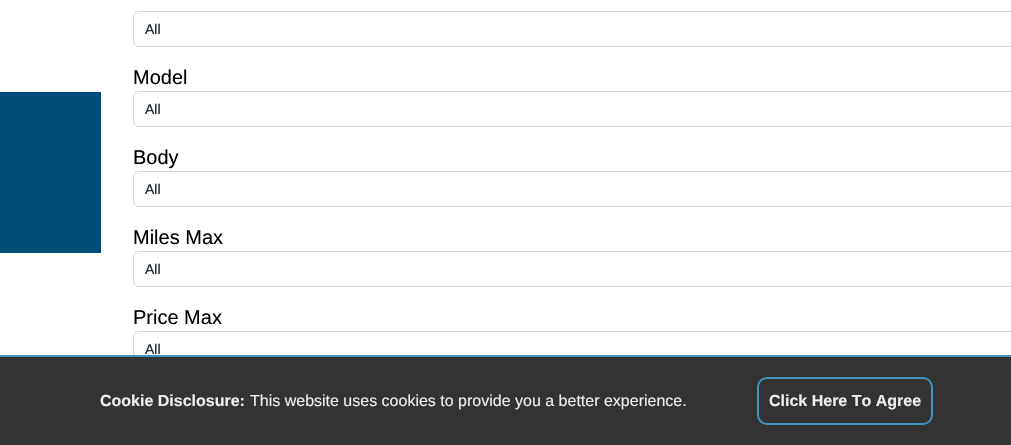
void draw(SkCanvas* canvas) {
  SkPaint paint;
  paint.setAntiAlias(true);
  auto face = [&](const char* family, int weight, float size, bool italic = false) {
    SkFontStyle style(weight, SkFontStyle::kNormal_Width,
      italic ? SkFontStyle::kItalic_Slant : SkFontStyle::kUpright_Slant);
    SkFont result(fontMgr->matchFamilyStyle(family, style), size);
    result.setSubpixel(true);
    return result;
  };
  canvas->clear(0xffffffff);
  paint.setColor(0xff004d79);
  canvas->drawRect(SkRect::MakeXYWH(0, 92, 101, 161), paint);
  paint.setStroke(true);
  paint.setStrokeWidth(1);
  paint.setColor(0xffd1d5db);
  canvas->drawRoundRect(SkRect::MakeXYWH(133.5f, 11.5f, 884, 35), 5.5f, 5.5f, paint);
  canvas->drawRoundRect(SkRect::MakeXYWH(133.5f, 91.5f, 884, 35), 5.5f, 5.5f, paint);
  canvas->drawRoundRect(SkRect::MakeXYWH(133.5f, 171.5f, 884, 35), 5.5f, 5.5f, paint);
  canvas->drawRoundRect(SkRect::MakeXYWH(133.5f, 251.5f, 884, 35), 5.5f, 5.5f, paint);
  canvas->drawRoundRect(SkRect::MakeXYWH(133.5f, 331.5f, 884, 35), 5.5f, 5.5f, paint);
  paint.setStroke(false);
  paint.setColor(0xff3e96c0);
  canvas->drawRect(SkRect::MakeXYWH(0, 355, 1011, 2), paint);
  paint.setColor(0xff333333);
  canvas->drawRect(SkRect::MakeXYWH(0, 357, 1011, 88), paint);
  paint.setStroke(true);
  paint.setStrokeWidth(2);
  paint.setColor(0xff3e96c0);
  canvas->drawRoundRect(SkRect::MakeXYWH(758, 378, 174, 46), 9, 9, paint);
  auto f0 = face("Liberation Sans", 400, 14);
  paint.setStroke(false);
  paint.setColor(0xff111827);
  canvas->drawString("All", 145, 34, f0, paint);
  auto f1 = face("Liberation Sans", 400, 20);
  paint.setColor(0xff000000);
  canvas->drawString("Model", 133, 84, f1, paint);
  paint.setColor(0xff111827);
  canvas->drawString("All", 145, 114, f0, paint);
  paint.setColor(0xff000000);
  canvas->drawString("Body", 133, 164, f1, paint);
  paint.setColor(0xff111827);
  canvas->drawString("All", 145, 194, f0, paint);
  paint.setColor(0xff000000);
  canvas->drawString("Miles Max", 133, 244, f1, paint);
  paint.setColor(0xff111827);
  canvas->drawString("All", 145, 274, f0, paint);
  paint.setColor(0xff000000);
  canvas->drawString("Price Max", 133, 324, f1, paint);
  paint.setColor(0xff111827);
  canvas->drawString("All", 145, 354, f0, paint);
  auto f2 = face("Liberation Sans", 700, 16);
  paint.setColor(0xffeeeeee);
  canvas->drawString("Cookie Disclosure:", 100, 406, f2, paint);
  auto f3 = face("Liberation Sans", 400, 16);
  canvas->drawString("This website uses cookies to provide you a better experience.", 250, 406, f3, paint);
  canvas->drawString("Click Here To Agree", 769, 406, f2, paint);
}
